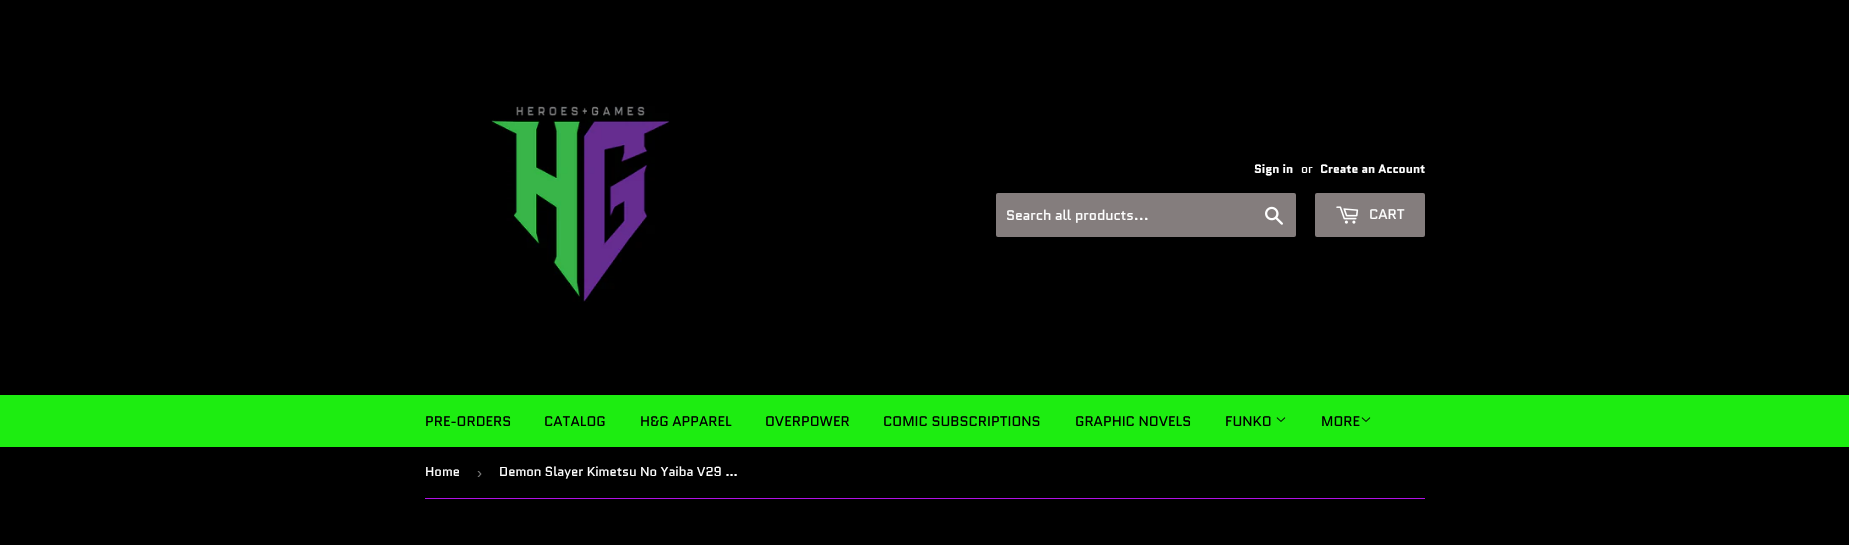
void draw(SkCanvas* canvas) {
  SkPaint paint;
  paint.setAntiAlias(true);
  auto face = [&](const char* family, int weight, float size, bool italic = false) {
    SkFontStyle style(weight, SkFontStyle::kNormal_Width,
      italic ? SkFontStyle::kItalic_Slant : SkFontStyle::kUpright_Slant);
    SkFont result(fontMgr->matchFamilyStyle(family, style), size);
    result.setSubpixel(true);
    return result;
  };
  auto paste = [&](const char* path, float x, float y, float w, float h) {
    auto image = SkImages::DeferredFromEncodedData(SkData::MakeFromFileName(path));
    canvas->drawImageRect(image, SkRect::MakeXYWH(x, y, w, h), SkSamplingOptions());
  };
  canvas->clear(0xff000000);
  paste("img/1.png", 491, 106, 179, 196);
  paint.setColor(0xff847d7d);
  canvas->drawRoundRect(SkRect::MakeXYWH(996, 193, 300, 44), 2, 2, paint);
  paste("img/2.png", 1265, 206, 18, 19);
  canvas->drawRoundRect(SkRect::MakeXYWH(1315, 193, 110, 44), 2, 2, paint);
  paste("img/3.png", 1336, 206, 23, 18);
  paint.setColor(0xff1ded11);
  canvas->drawRect(SkRect::MakeXYWH(0, 395, 1849, 52), paint);
  paste("img/4.png", 1276, 417, 10, 5);
  paste("img/4.png", 1361, 417, 10, 5);
  paint.setColor(0xffb111e6);
  canvas->drawRect(SkRect::MakeXYWH(425, 498, 1000, 1), paint);
  auto f0 = face("Quantico", 700, 12);
  paint.setColor(0xffffffff);
  canvas->drawString("Sign in", 1254, 173, f0, paint);
  auto f1 = face("Quantico", 400, 12);
  canvas->drawString("or", 1301, 173, f1, paint);
  canvas->drawString("Create an Account", 1320, 173, f0, paint);
  auto f2 = face("Quantico", 400, 14);
  canvas->drawString("Search all products...", 1006, 220, f2, paint);
  canvas->drawString("CART", 1369, 219, f2, paint);
  paint.setColor(0xff000000);
  {
    const struct { const char* s; float x, y; } items[] = {
      {"PRE-ORDERS", 425, 426},
      {"CATALOG", 544, 426},
      {"H&G APPAREL", 640, 426},
      {"OVERPOWER", 765, 426},
      {"COMIC SUBSCRIPTIONS", 883, 426},
      {"GRAPHIC NOVELS", 1075, 426},
      {"FUNKO", 1225, 426},
      {"MORE", 1321, 426},
    };
    for (auto [s, x, y] : items) {
      canvas->drawString(s, x, y, f2, paint);
    }
  }
  auto f3 = face("Quantico", 400, 13);
  paint.setColor(0xffffffff);
  canvas->drawString("Home", 425, 476, f3, paint);
  auto f4 = face("Liberation Sans", 400, 15);
  paint.setColor(0xff767676);
  canvas->drawString("›", 477, 478, f4, paint);
  paint.setColor(0xffffffff);
  canvas->drawString("Demon Slayer Kimetsu No Yaiba V29 …", 499, 476, f3, paint);
}
